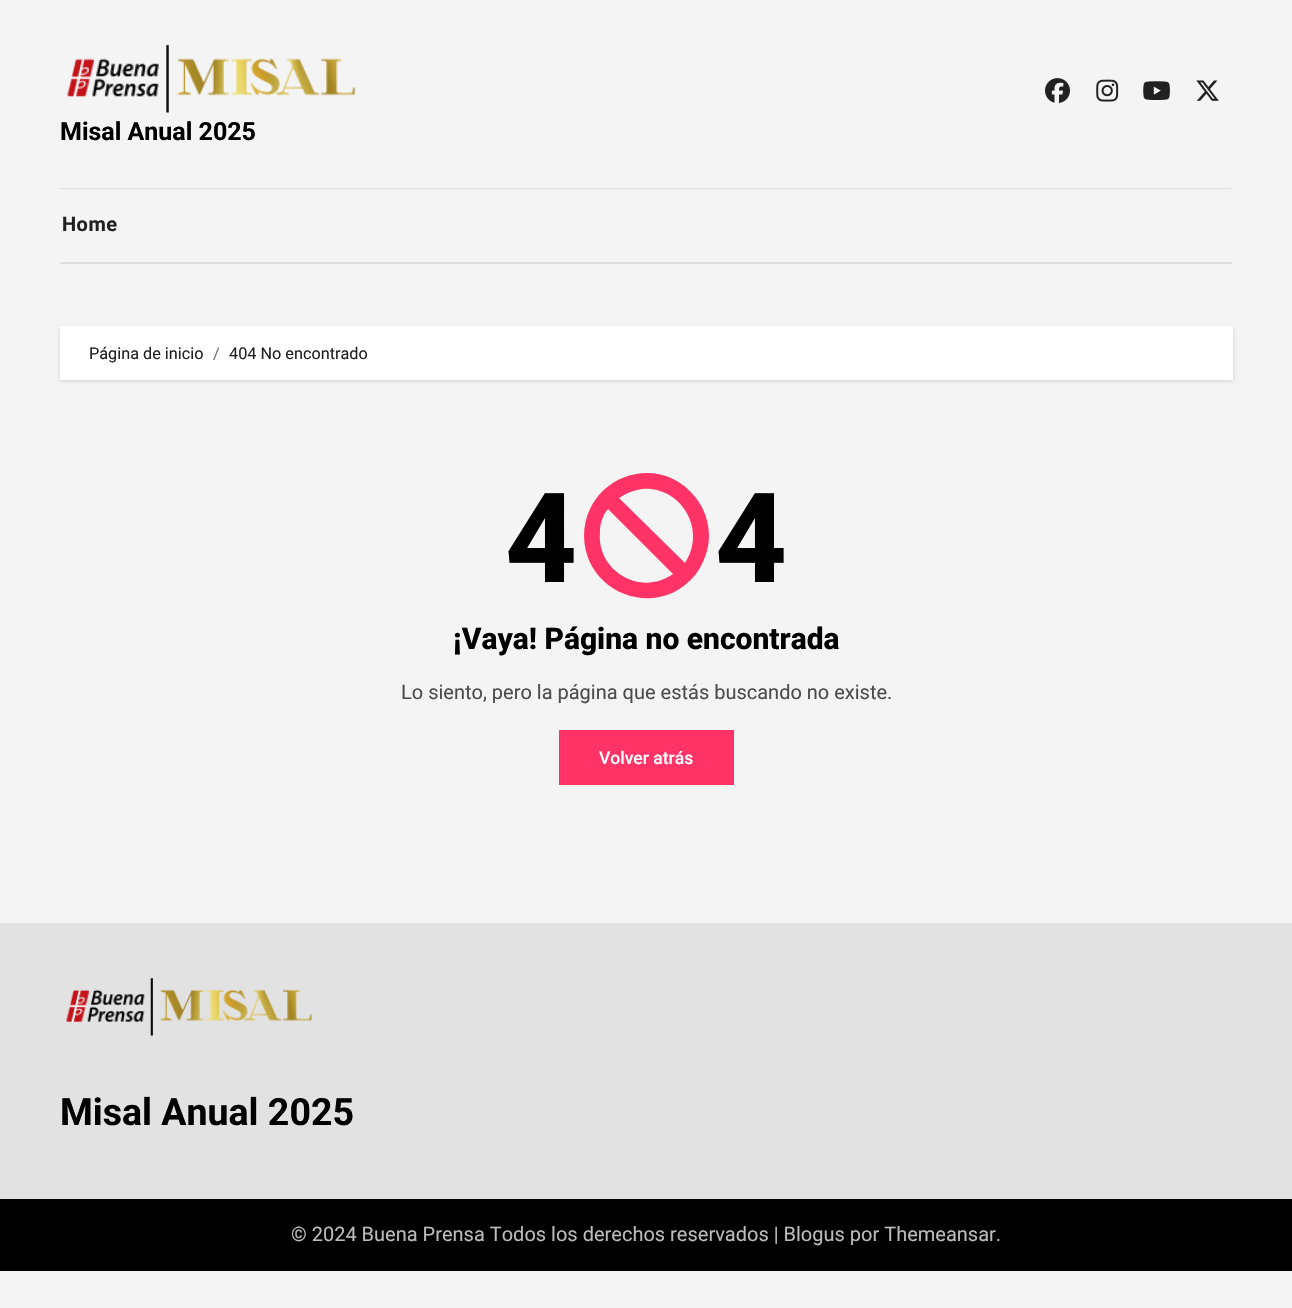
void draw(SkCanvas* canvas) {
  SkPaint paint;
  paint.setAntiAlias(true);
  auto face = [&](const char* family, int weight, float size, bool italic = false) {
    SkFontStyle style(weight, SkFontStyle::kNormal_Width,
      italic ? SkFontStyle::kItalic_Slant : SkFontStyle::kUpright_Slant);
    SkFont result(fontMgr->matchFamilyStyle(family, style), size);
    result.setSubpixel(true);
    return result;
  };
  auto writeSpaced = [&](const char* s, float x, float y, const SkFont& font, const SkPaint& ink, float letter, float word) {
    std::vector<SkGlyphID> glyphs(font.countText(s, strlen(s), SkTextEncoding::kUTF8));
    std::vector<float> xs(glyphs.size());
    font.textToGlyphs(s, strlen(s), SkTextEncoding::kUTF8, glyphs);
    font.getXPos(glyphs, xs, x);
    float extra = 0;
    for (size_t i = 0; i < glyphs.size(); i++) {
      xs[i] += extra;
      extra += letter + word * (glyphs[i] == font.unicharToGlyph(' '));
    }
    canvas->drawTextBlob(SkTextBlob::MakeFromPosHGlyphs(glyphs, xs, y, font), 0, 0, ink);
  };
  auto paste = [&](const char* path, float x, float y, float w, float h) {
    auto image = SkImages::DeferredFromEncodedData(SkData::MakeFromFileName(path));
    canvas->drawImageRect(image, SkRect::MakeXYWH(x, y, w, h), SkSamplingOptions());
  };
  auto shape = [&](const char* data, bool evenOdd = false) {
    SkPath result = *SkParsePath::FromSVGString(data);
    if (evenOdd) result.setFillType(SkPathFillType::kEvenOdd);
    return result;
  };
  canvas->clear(0xfff4f4f4);
  paste("img/1.png", 1045, 78, 25, 25);
  paste("img/2.png", 1096, 79, 23, 23);
  paste("img/3.png", 1143, 81, 27, 19);
  paste("img/4.png", 1196, 80, 23, 21);
  paste("img/5.png", 67, 44, 289, 69);
  paint.setColor(0xffdddddd);
  canvas->drawPath(shape("M60 188H1232L1231 189H61Z"), paint);
  canvas->drawPath(shape("M1232 264H60L61 262H1231Z"), paint);
  paint.setColor(0x26000000);
  paint.setMaskFilter(SkMaskFilter::MakeBlur(kNormal_SkBlurStyle, 2));
  canvas->drawRect(SkRect::MakeXYWH(60, 328, 1173, 53), paint);
  paint.setMaskFilter(nullptr);
  paint.setColor(0xffffffff);
  canvas->drawRect(SkRect::MakeXYWH(60, 326, 1173, 54), paint);
  paint.setColor(0xffff3366);
  canvas->drawPath(shape("M673 574L608 509C603 515 600 523 600 532C596 571 641 597 673 574ZM685 563C707 531 682 486 642 489C634 490 626 493 619 498ZM584 536C585 476 659 450 696 498C704 508 709 522 709 536C709 549 704 563 696 574C659 621 585 595 584 536Z"), paint);
  canvas->drawRect(SkRect::MakeXYWH(559, 730, 175, 55), paint);
  paint.setColor(0xffe2e2e2);
  canvas->drawRect(SkRect::MakeXYWH(0, 923, 1292, 276), paint);
  paste("img/6.png", 66, 978, 246, 58);
  paint.setColor(0xff000000);
  canvas->drawRect(SkRect::MakeXYWH(0, 1199, 1292, 72), paint);
  auto f0 = face("Roboto", 700, 25);
  canvas->drawString("Misal Anual 2025", 60, 140, f0, paint);
  auto f1 = face("Roboto", 700, 20);
  paint.setColor(0xff212121);
  writeSpaced("Home", 62, 231, f1, paint, 0.5f, 0);
  auto f2 = face("Roboto", 400, 16.25f);
  canvas->drawString("Página de inicio", 89, 359, f2, paint);
  paint.setColor(0xff6c757d);
  canvas->drawString("/", 213, 359, f2, paint);
  paint.setColor(0xff212121);
  canvas->drawString("404 No encontrado", 229, 359, f2, paint);
  auto f3 = face("Roboto", 800, 125);
  paint.setColor(0xff000000);
  canvas->drawString("4", 505, 582, f3, paint);
  canvas->drawString("4", 715, 582, f3, paint);
  auto f4 = face("Roboto", 800, 30);
  canvas->drawString("¡Vaya! Página no encontrada", 453, 649, f4, paint);
  auto f5 = face("Roboto", 400, 20);
  paint.setColor(0xff4c4c4c);
  canvas->drawString("Lo siento, pero la página que estás buscando no existe.", 401, 699, f5, paint);
  auto f6 = face("Roboto", 500, 17.5f);
  paint.setColor(0xffffffff);
  canvas->drawString("Volver atrás", 599, 764, f6, paint);
  auto f7 = face("Roboto", 700, 37.5f);
  paint.setColor(0xff000000);
  canvas->drawString("Misal Anual 2025", 60, 1125, f7, paint);
  paint.setColor(0xffbbbbbb);
  canvas->drawString("© 2024 Buena Prensa Todos los derechos reservados | Blogus por Themeansar.", 291, 1241, f5, paint);
}
